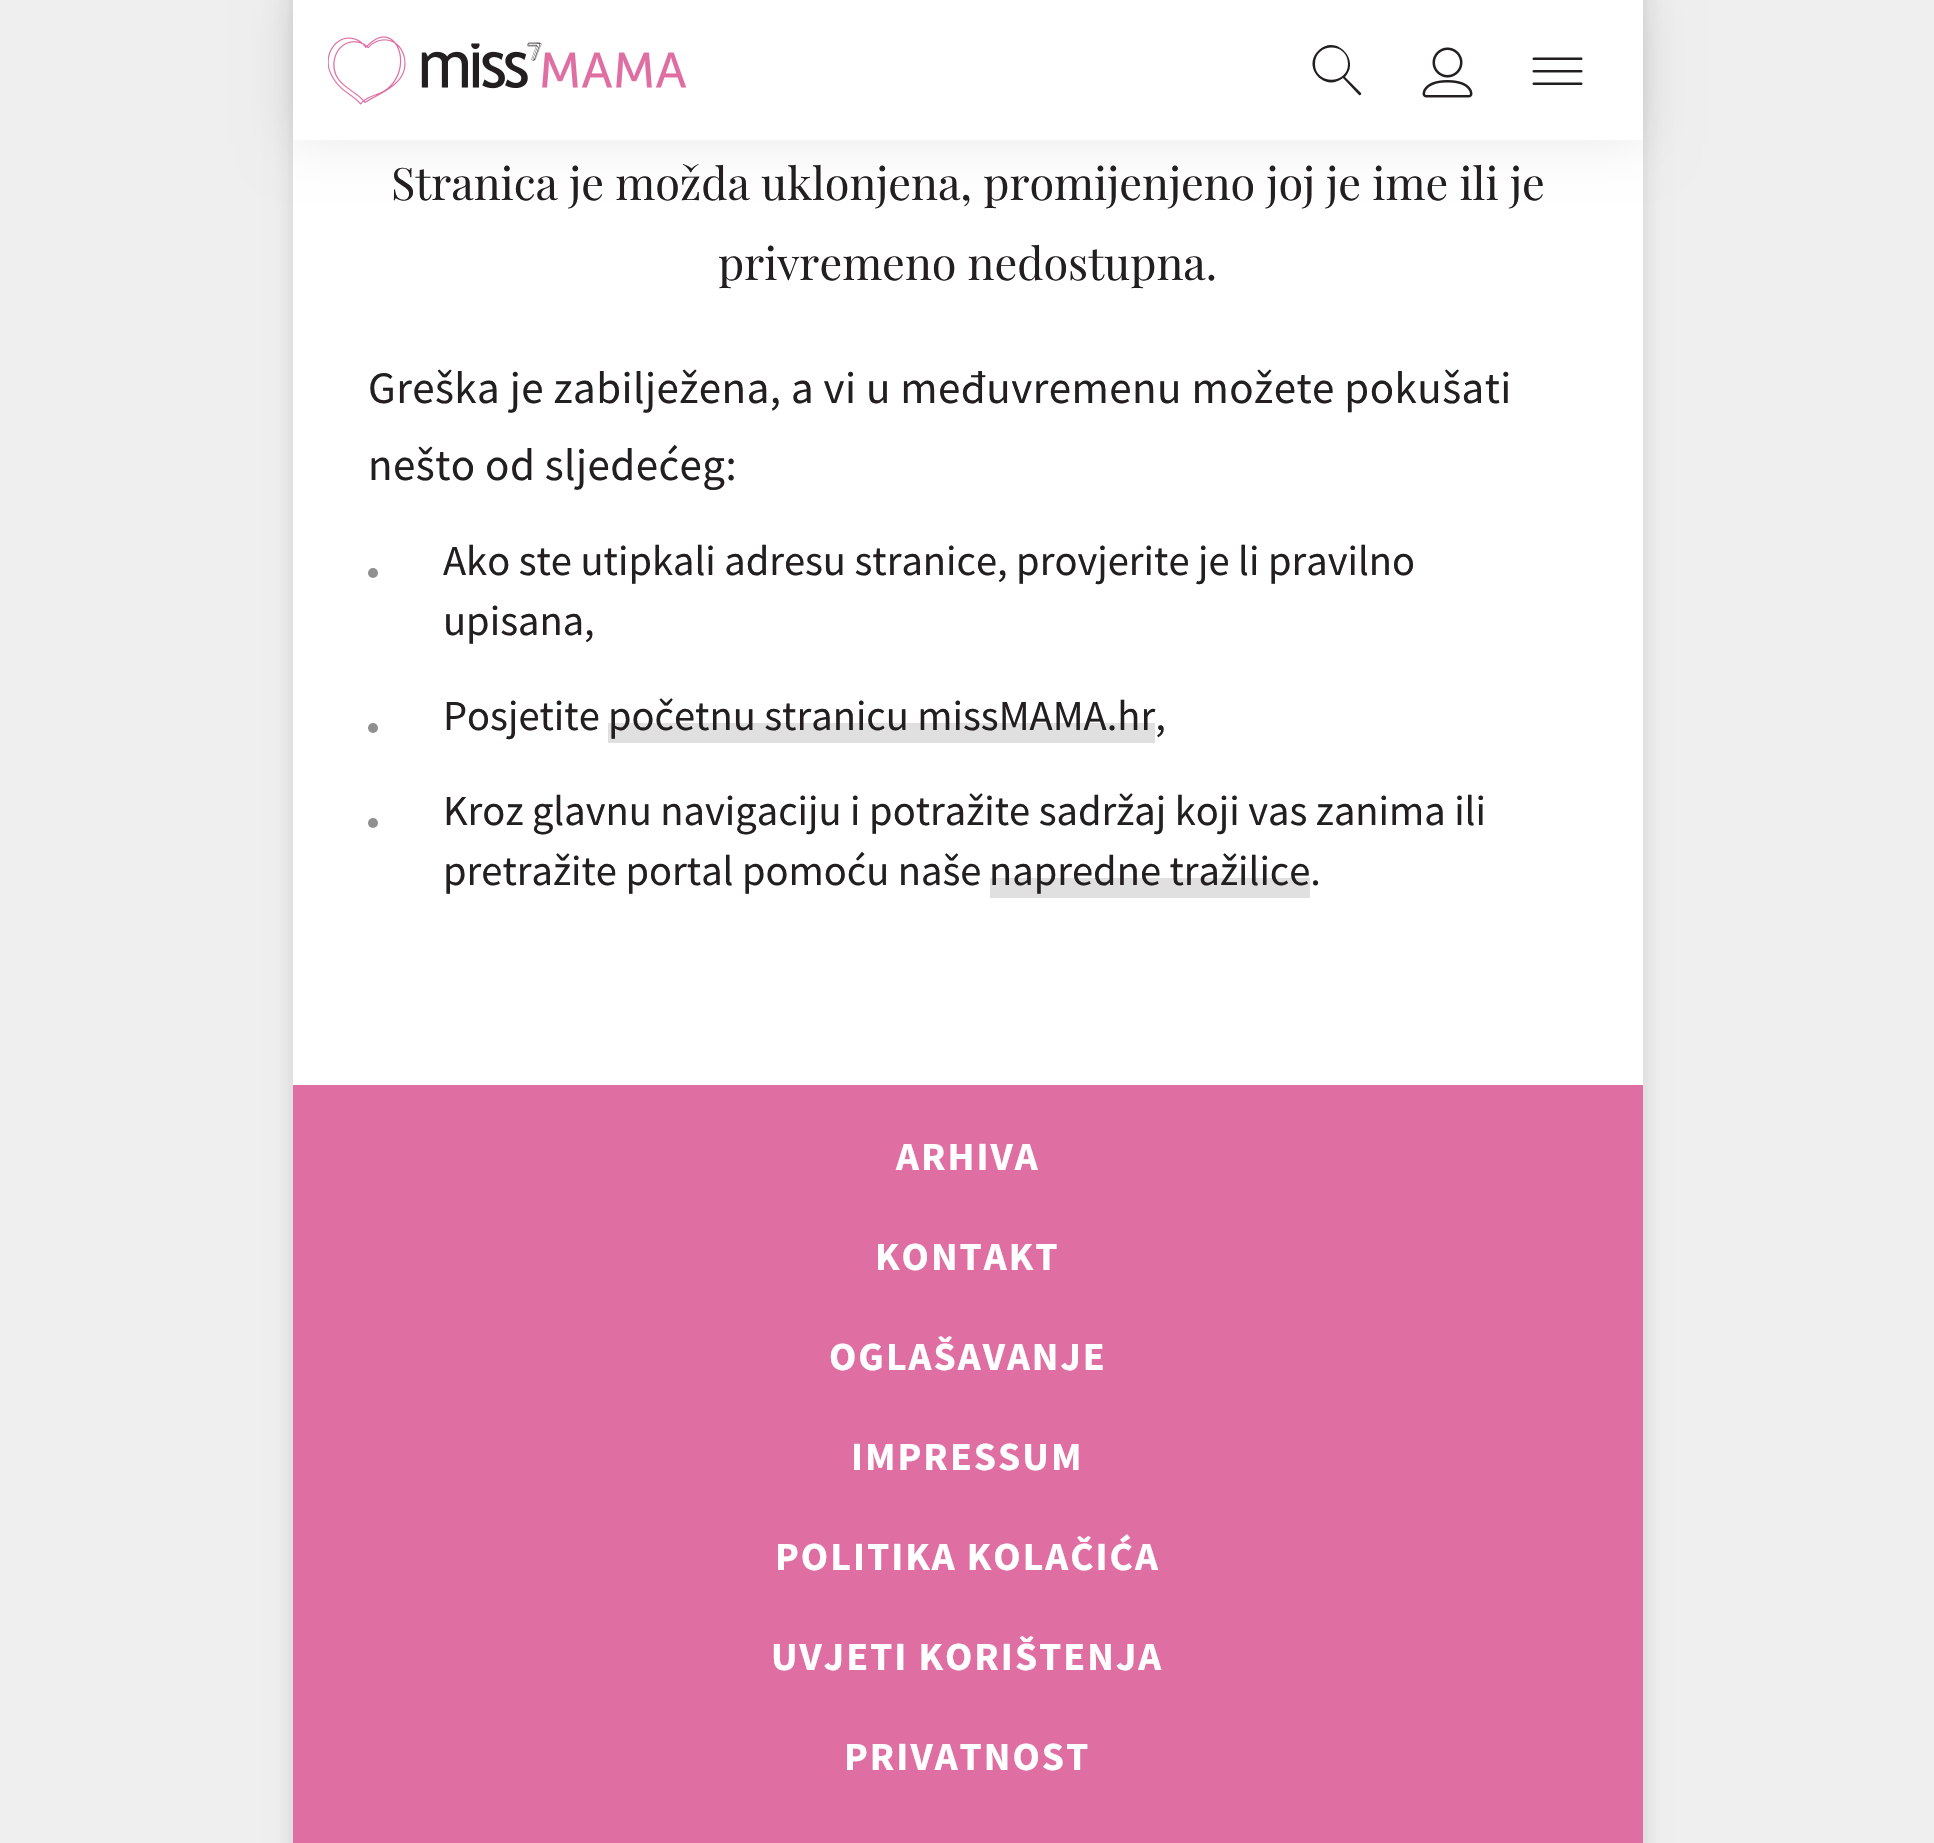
void draw(SkCanvas* canvas) {
  SkPaint paint;
  paint.setAntiAlias(true);
  auto face = [&](const char* family, int weight, float size, bool italic = false) {
    SkFontStyle style(weight, SkFontStyle::kNormal_Width,
      italic ? SkFontStyle::kItalic_Slant : SkFontStyle::kUpright_Slant);
    SkFont result(fontMgr->matchFamilyStyle(family, style), size);
    result.setSubpixel(true);
    return result;
  };
  auto writeSpaced = [&](const char* s, float x, float y, const SkFont& font, const SkPaint& ink, float letter, float word) {
    std::vector<SkGlyphID> glyphs(font.countText(s, strlen(s), SkTextEncoding::kUTF8));
    std::vector<float> xs(glyphs.size());
    font.textToGlyphs(s, strlen(s), SkTextEncoding::kUTF8, glyphs);
    font.getXPos(glyphs, xs, x);
    float extra = 0;
    for (size_t i = 0; i < glyphs.size(); i++) {
      xs[i] += extra;
      extra += letter + word * (glyphs[i] == font.unicharToGlyph(' '));
    }
    canvas->drawTextBlob(SkTextBlob::MakeFromPosHGlyphs(glyphs, xs, y, font), 0, 0, ink);
  };
  auto paste = [&](const char* path, float x, float y, float w, float h) {
    auto image = SkImages::DeferredFromEncodedData(SkData::MakeFromFileName(path));
    canvas->drawImageRect(image, SkRect::MakeXYWH(x, y, w, h), SkSamplingOptions());
  };
  auto shape = [&](const char* data, bool evenOdd = false) {
    SkPath result = *SkParsePath::FromSVGString(data);
    if (evenOdd) result.setFillType(SkPathFillType::kEvenOdd);
    return result;
  };
  canvas->clear(0xffefefef);
  paint.setColor(0x21000000);
  paint.setMaskFilter(SkMaskFilter::MakeBlur(kNormal_SkBlurStyle, 10));
  canvas->drawRect(SkRect::MakeXYWH(293, -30, 1350, 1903), paint);
  paint.setMaskFilter(nullptr);
  paint.setColor(0xffffffff);
  canvas->drawRect(SkRect::MakeXYWH(293, 140, 1350, 945), paint);
  paint.setColor(0x14000000);
  paint.setMaskFilter(SkMaskFilter::MakeBlur(kNormal_SkBlurStyle, 26));
  canvas->drawRect(SkRect::MakeXYWH(290, -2, 1355, 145), paint);
  paint.setMaskFilter(nullptr);
  paint.setColor(0xffffffff);
  canvas->drawRect(SkRect::MakeXYWH(293, 0, 1350, 140), paint);
  paste("img/1.png", 328, 36, 359, 69);
  paint.setColor(0xff231f20);
  canvas->drawPath(shape("M1361 93L1345 77C1361 60 1336 34 1319 50C1301 66 1324 93 1343 78L1359 95C1360 96 1362 94 1361 93ZM1315 64C1315 42 1348 42 1348 64C1348 85 1315 85 1315 64Z"), paint);
  paste("img/2.png", 1422, 47, 51, 51);
  paste("img/3.png", 1532, 57, 51, 28);
  paint.setColor(0xff8f8f8f);
  canvas->drawCircle(373, 573, 5, paint);
  canvas->drawCircle(373, 728, 5, paint);
  paint.setColor(0xffe0e0e0);
  canvas->drawRect(SkRect::MakeXYWH(608, 723, 547, 20), paint);
  paint.setColor(0xff8f8f8f);
  canvas->drawCircle(373, 823, 5, paint);
  paint.setColor(0xffe0e0e0);
  canvas->drawRect(SkRect::MakeXYWH(990, 878, 320, 20), paint);
  paint.setColor(0xffdf6fa3);
  canvas->drawRect(SkRect::MakeXYWH(293, 1085, 1350, 758), paint);
  auto f0 = face("Playfair Display", 400, 45);
  paint.setColor(0xff231f20);
  canvas->drawString("Stranica je možda uklonjena, promijenjeno joj je ime ili je", 391, 200, f0, paint);
  canvas->drawString("privremeno nedostupna.", 718, 280, f0, paint);
  auto f1 = face("Source Sans Pro", 400, 45);
  writeSpaced("Greška je zabilježena, a vi u međuvremenu možete pokušati", 368, 403, f1, paint, 0.45f, 0);
  writeSpaced("nešto od sljedećeg:", 368, 480, f1, paint, 0.45f, 0);
  auto f2 = face("Source Sans Pro", 400, 42.5f);
  {
    const struct { const char* s; float x, y; } items[] = {
      {"Ako ste utipkali adresu stranice, provjerite je li pravilno", 443, 575},
      {"upisana,", 443, 635},
      {"Posjetite", 443, 730},
      {"početnu stranicu missMAMA.hr,", 608, 730},
      {"Kroz glavnu navigaciju i potražite sadržaj koji vas zanima ili", 443, 825},
      {"pretražite portal pomoću naše", 443, 885},
      {"napredne tražilice.", 989, 885},
    };
    for (auto [s, x, y] : items) {
      canvas->drawString(s, x, y, f2, paint);
    }
  }
  auto f3 = face("Source Sans Pro", 700, 40);
  paint.setColor(0xffffffff);
  {
    const struct { const char* s; float x, y; } items[] = {
      {"ARHIVA", 896, 1170},
      {"KONTAKT", 875, 1270},
      {"OGLAŠAVANJE", 829, 1370},
      {"IMPRESSUM", 851, 1470},
      {"POLITIKA KOLAČIĆA", 775, 1570},
      {"UVJETI KORIŠTENJA", 771, 1670},
      {"PRIVATNOST", 844, 1770},
    };
    for (auto [s, x, y] : items) {
      writeSpaced(s, x, y, f3, paint, 2, 0);
    }
  }
}
